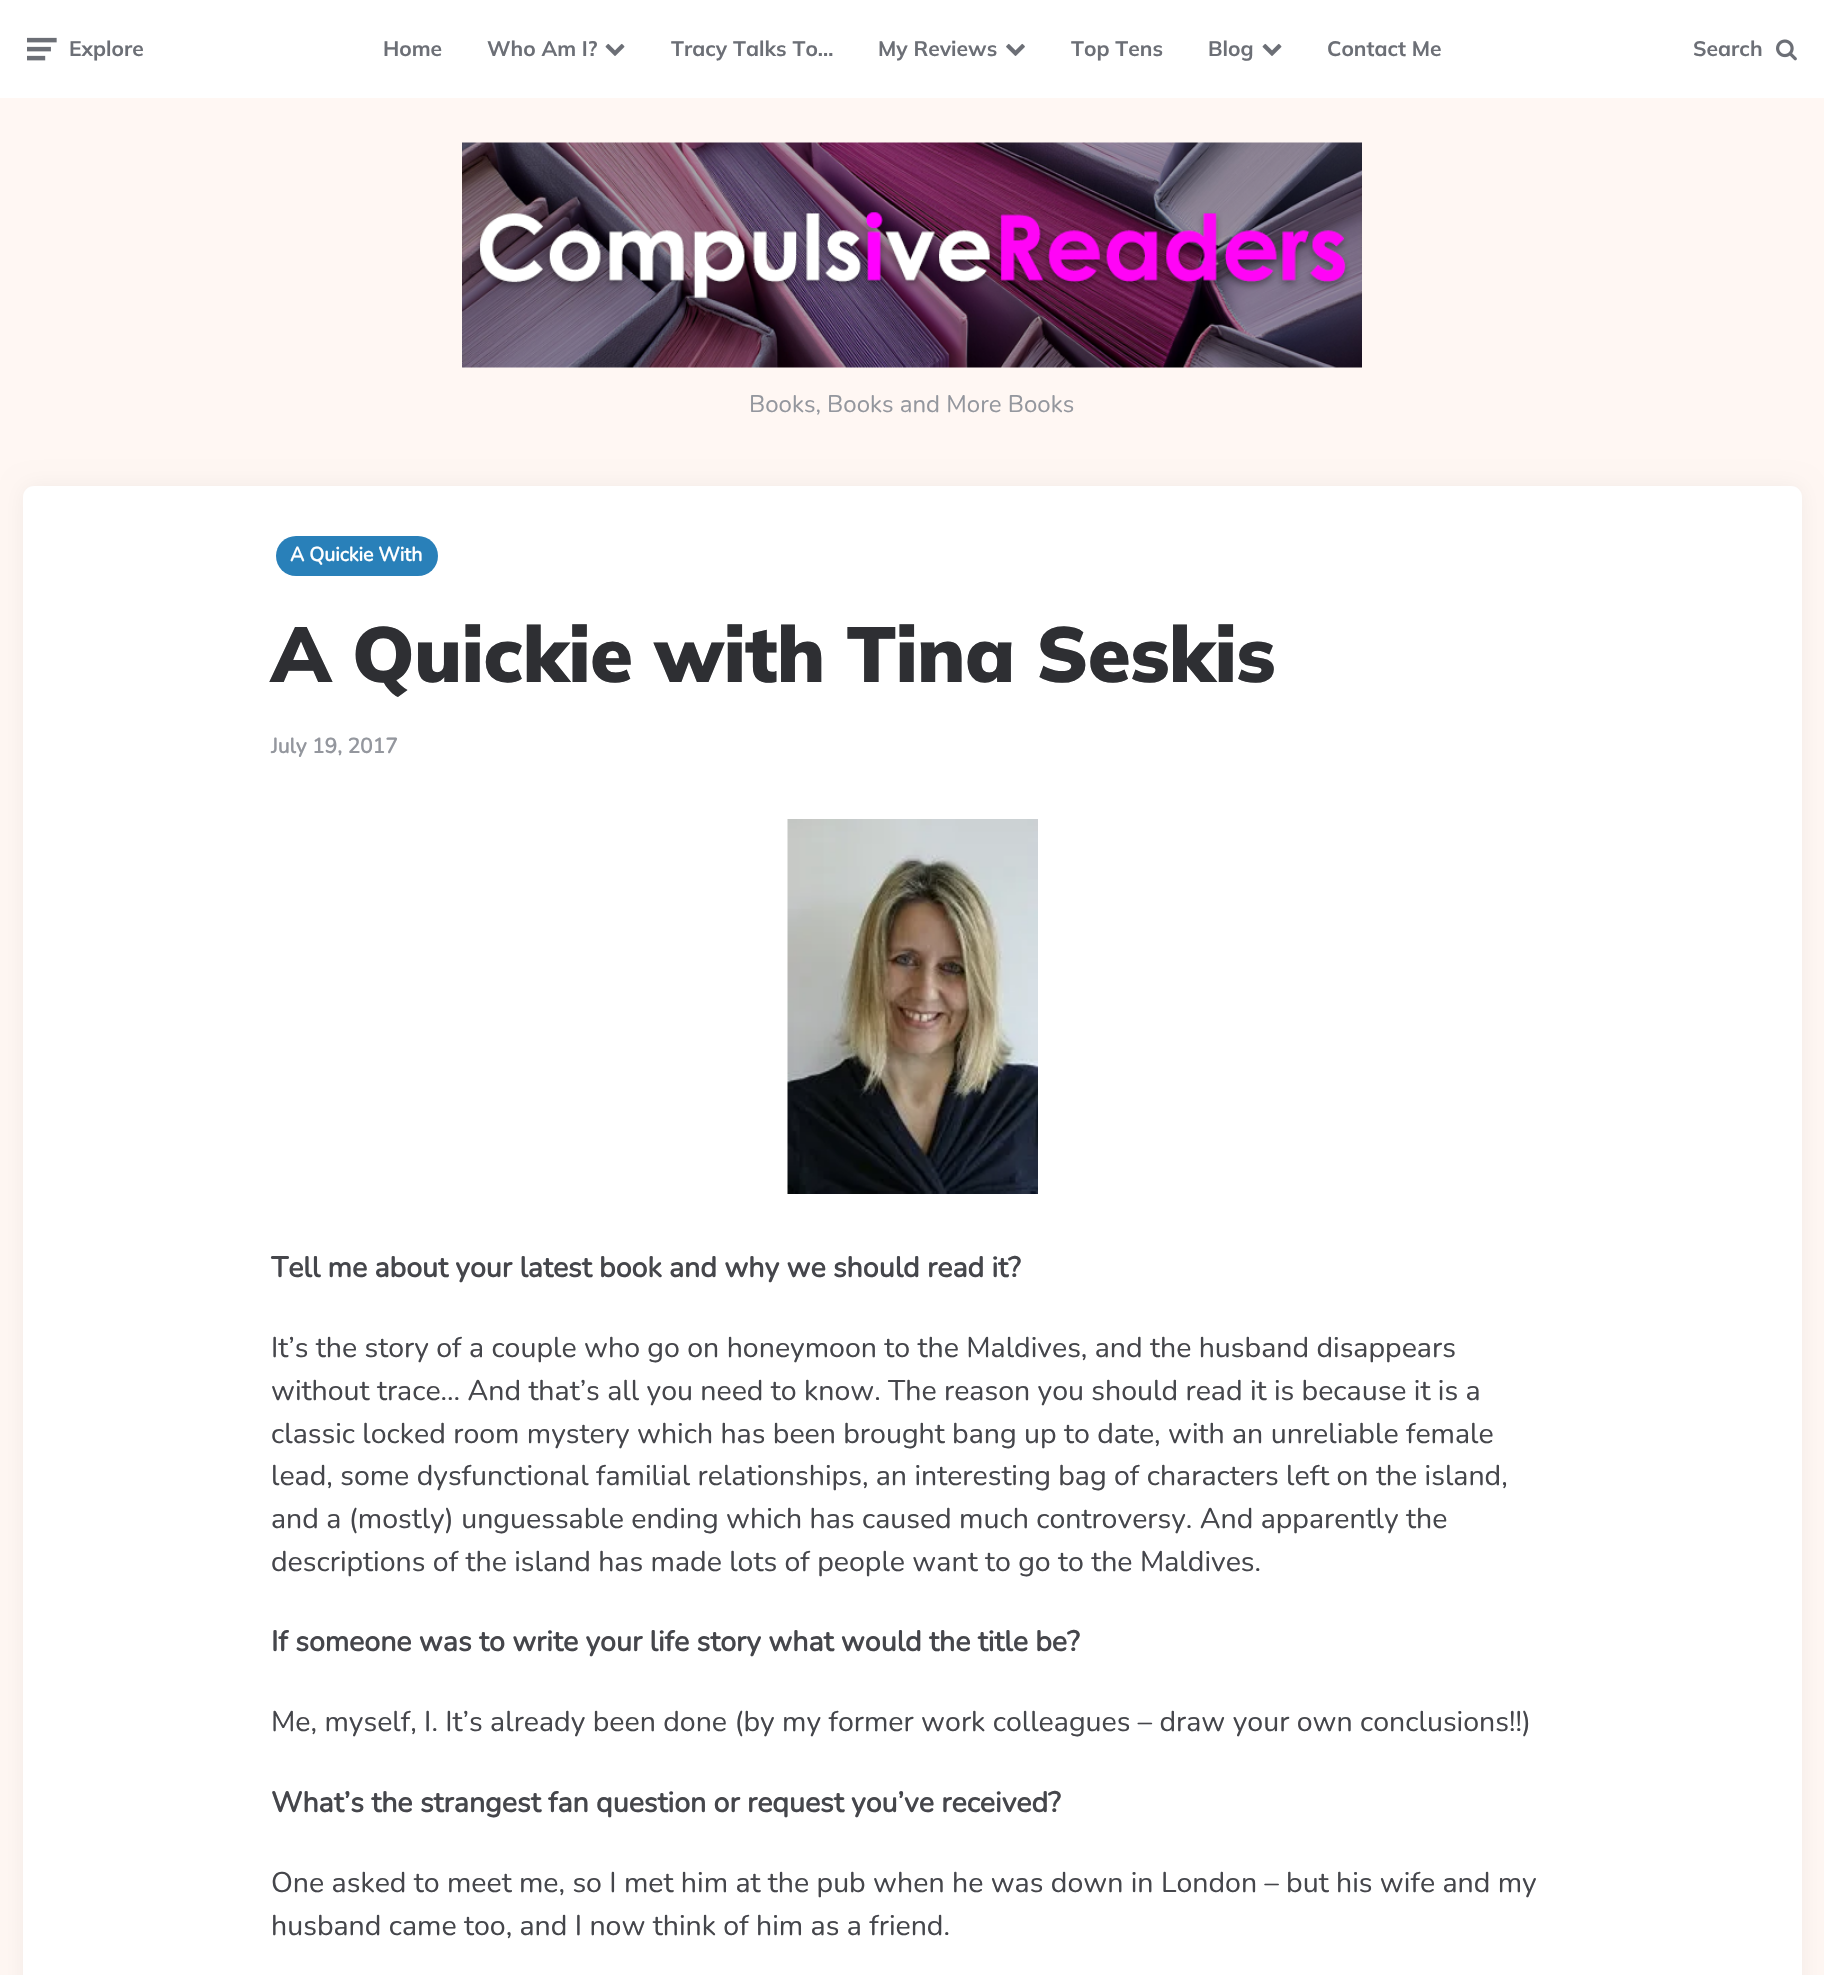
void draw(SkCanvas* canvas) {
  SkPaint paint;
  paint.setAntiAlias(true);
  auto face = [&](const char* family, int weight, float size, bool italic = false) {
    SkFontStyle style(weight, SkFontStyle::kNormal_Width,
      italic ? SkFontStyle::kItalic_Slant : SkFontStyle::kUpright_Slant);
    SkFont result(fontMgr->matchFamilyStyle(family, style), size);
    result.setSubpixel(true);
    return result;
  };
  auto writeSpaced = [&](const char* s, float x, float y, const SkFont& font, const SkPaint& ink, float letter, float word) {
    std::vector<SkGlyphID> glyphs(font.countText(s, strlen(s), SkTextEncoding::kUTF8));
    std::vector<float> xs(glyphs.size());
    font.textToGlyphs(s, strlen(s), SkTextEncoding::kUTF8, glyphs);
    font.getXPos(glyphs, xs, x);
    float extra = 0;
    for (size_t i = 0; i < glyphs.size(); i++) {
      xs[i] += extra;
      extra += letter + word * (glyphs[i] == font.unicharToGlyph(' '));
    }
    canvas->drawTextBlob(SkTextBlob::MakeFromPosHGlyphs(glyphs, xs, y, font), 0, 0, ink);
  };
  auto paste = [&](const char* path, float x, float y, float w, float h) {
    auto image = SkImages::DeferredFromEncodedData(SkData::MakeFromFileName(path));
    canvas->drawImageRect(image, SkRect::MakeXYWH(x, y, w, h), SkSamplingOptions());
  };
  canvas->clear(0xfffff7f3);
  paint.setColor(0xffffffff);
  canvas->drawRect(SkRect::MakeXYWH(0, 0, 1824, 98), paint);
  paste("img/1.png", 27, 37, 30, 24);
  paste("img/2.png", 605, 43, 20, 13);
  paste("img/3.png", 1006, 43, 19, 13);
  paste("img/2.png", 1262, 43, 20, 13);
  paste("img/4.png", 1776, 39, 21, 22);
  paste("img/5.png", 462, 142, 900, 226);
  paint.setColor(0x0d000000);
  paint.setMaskFilter(SkMaskFilter::MakeBlur(kNormal_SkBlurStyle, 11));
  canvas->drawRoundRect(SkRect::MakeXYWH(23, 486, 1779, 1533), 11, 11, paint);
  paint.setMaskFilter(nullptr);
  paint.setColor(0xffffffff);
  canvas->drawRoundRect(SkRect::MakeXYWH(23, 486, 1779, 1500), 11, 11, paint);
  paint.setColor(0xff2980b9);
  canvas->drawRoundRect(SkRect::MakeXYWH(276, 536, 162, 40), 20, 20, paint);
  paste("img/6.png", 787, 819, 251, 375);
  auto f0 = face("Mulish", 700, 21);
  paint.setColor(0xff6c6f76);
  {
    const struct { const char* s; float x, y; } items[] = {
      {"Explore", 69, 56},
      {"Home", 383, 56},
      {"Who Am I?", 487, 56},
      {"Tracy Talks To…", 671, 56},
      {"My Reviews", 878, 56},
      {"Top Tens", 1071, 56},
      {"Blog", 1208, 56},
      {"Contact Me", 1327, 56},
      {"Search", 1693, 56},
    };
    for (auto [s, x, y] : items) {
      canvas->drawString(s, x, y, f0, paint);
    }
  }
  auto f1 = face("Nunito", 200, 24);
  paint.setColor(0xff94979e);
  canvas->drawString("Books, Books and More Books", 749, 412, f1, paint);
  auto f2 = face("Nunito", 700, 19.5f);
  paint.setColor(0xffffffff);
  canvas->drawString("A Quickie With", 290, 561, f2, paint);
  auto f3 = face("Mulish", 900, 78);
  paint.setColor(0xff2e2f33);
  writeSpaced("A Quickie with Tina Seskis", 271, 682, f3, paint, -0.75f, 0);
  auto f4 = face("Nunito", 700, 21);
  paint.setColor(0xff94979e);
  canvas->drawString("July 19, 2017", 271, 753, f4, paint);
  auto f5 = face("Nunito", 700, 28.5f);
  paint.setColor(0xff45464b);
  canvas->drawString("Tell me about your latest book and why we should read it?", 271, 1277, f5, paint);
  auto f6 = face("Nunito", 200, 28.5f);
  {
    const struct { const char* s; float x, y; } items[] = {
      {"It’s the story of a couple who go on honeymoon to the Maldives, and the husband disappears", 271, 1357},
      {"without trace… And that’s all you need to know. The reason you should read it is because it is a", 271, 1400},
      {"classic locked room mystery which has been brought bang up to date, with an unreliable female", 271, 1443},
      {"lead, some dysfunctional familial relationships, an interesting bag of characters left on the island,", 271, 1485},
      {"and a (mostly) unguessable ending which has caused much controversy. And apparently the", 271, 1528},
      {"descriptions of the island has made lots of people want to go to the Maldives.", 271, 1571},
    };
    for (auto [s, x, y] : items) {
      canvas->drawString(s, x, y, f6, paint);
    }
  }
  canvas->drawString("If someone was to write your life story what would the title be?", 271, 1651, f5, paint);
  canvas->drawString("Me, myself, I. It’s already been done (by my former work colleagues – draw your own conclusions!!)", 271, 1731, f6, paint);
  canvas->drawString("What’s the strangest fan question or request you’ve received?", 271, 1812, f5, paint);
  canvas->drawString("One asked to meet me, so I met him at the pub when he was down in London – but his wife and my", 271, 1892, f6, paint);
  canvas->drawString("husband came too, and I now think of him as a friend.", 271, 1935, f6, paint);
}
